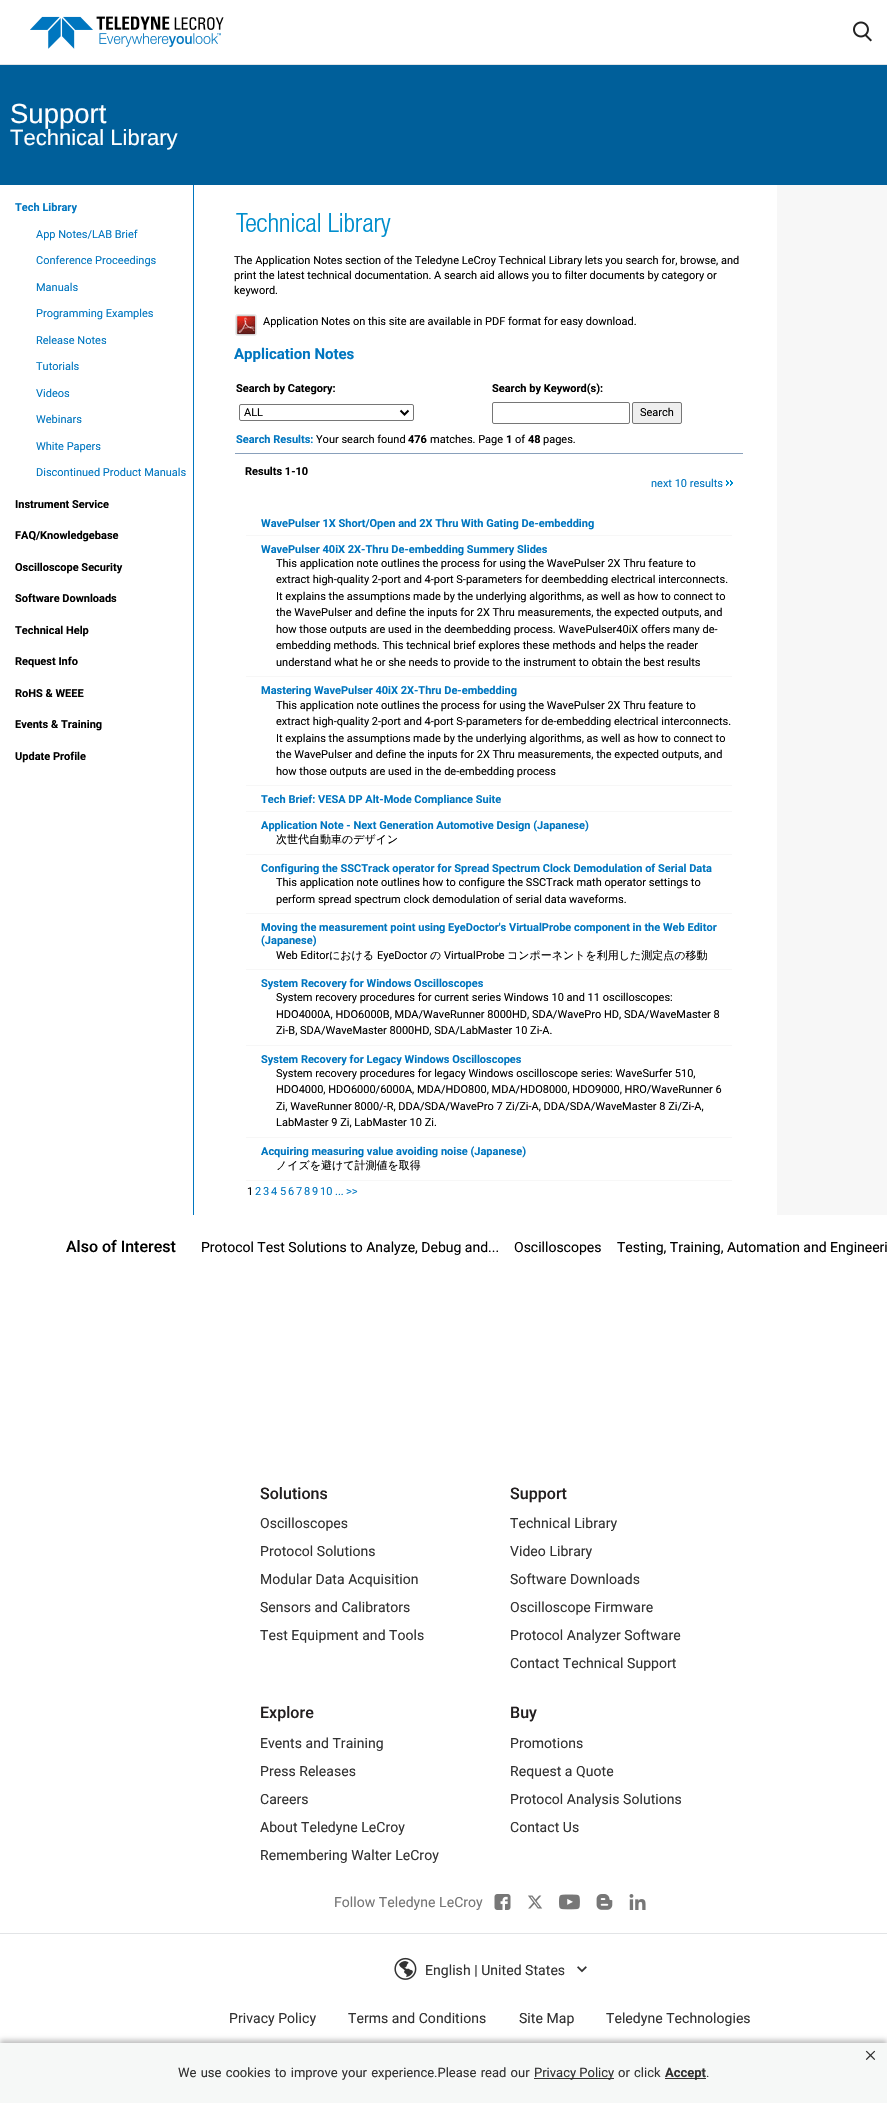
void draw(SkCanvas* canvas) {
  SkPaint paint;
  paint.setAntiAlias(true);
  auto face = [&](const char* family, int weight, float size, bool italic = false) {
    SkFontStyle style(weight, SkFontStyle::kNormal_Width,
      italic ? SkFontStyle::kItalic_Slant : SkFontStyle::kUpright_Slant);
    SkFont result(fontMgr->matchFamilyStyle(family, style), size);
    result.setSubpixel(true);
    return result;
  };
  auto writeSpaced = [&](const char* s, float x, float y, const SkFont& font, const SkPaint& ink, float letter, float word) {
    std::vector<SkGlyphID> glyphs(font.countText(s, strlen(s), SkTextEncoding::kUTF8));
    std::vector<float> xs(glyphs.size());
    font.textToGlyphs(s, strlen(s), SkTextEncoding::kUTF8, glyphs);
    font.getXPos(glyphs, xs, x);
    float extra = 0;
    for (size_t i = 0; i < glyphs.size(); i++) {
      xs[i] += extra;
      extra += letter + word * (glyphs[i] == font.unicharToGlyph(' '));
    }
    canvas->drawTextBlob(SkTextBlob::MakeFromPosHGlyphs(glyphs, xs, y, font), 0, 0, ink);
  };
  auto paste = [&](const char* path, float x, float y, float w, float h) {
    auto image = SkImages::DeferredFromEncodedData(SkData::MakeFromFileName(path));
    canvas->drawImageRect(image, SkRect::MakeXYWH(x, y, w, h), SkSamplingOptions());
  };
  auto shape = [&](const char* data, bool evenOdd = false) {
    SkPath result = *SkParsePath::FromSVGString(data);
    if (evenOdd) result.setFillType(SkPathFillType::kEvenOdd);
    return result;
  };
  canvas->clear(0xffffffff);
  paint.setColor(0xffe2e4e6);
  canvas->drawRect(SkRect::MakeXYWH(0, 64, 887, 1), paint);
  paste("img/1.png", 30, 16, 194, 33);
  paste("img/2.png", 853, 21, 19, 21);
  {
    const struct { float x, y, w, h; SkColor color; } items[] = {
      {0, 65, 887, 120, 0xff005f9a},
      {777, 185, 110, 1030, 0xfff7f7f7},
      {193, 185, 1, 1030, 0xff0076c0},
    };
    for (auto [x, y, w, h, color] : items) {
      paint.setColor(color);
      canvas->drawRect(SkRect::MakeXYWH(x, y, w, h), paint);
    }
  }
  paste("img/3.png", 236, 213, 155, 24);
  paste("img/4.png", 235, 314, 22, 22);
  paint.setStroke(true);
  paint.setStrokeWidth(1);
  paint.setColor(0xff767676);
  canvas->drawRoundRect(SkRect::MakeXYWH(239.5f, 404.5f, 174, 16), 1.5f, 1.5f, paint);
  paint.setStrokeWidth(2);
  paint.setColor(0xff000000);
  canvas->drawPath(shape("M400.5 410.5L404.5 414.5L408.5 410.5"), paint);
  paint.setStrokeWidth(1);
  paint.setColor(0xff767676);
  canvas->drawRoundRect(SkRect::MakeXYWH(492.5f, 402.5f, 137, 21), 1.5f, 1.5f, paint);
  paint.setStroke(false);
  paint.setColor(0xffefefef);
  canvas->drawRoundRect(SkRect::MakeXYWH(632.5f, 402.5f, 49, 21), 1.5f, 1.5f, paint);
  paint.setStroke(true);
  paint.setColor(0xff767676);
  canvas->drawRoundRect(SkRect::MakeXYWH(632.5f, 402.5f, 49, 21), 1.5f, 1.5f, paint);
  paint.setStroke(false);
  paint.setColor(0xff89a0bb);
  canvas->drawRect(SkRect::MakeXYWH(235, 453, 508, 1), paint);
  paste("img/5.png", 726, 480, 7, 6);
  {
    const struct { float x, y, w, h; SkColor color; } items[] = {
      {246, 535, 486, 1, 0xfff7f7f7},
      {246, 676, 486, 1, 0xfff7f7f7},
      {246, 785, 486, 1, 0xfff7f7f7},
      {246, 811, 486, 1, 0xfff7f7f7},
      {246, 854, 486, 1, 0xfff7f7f7},
      {246, 913, 486, 1, 0xfff7f7f7},
      {246, 969, 486, 1, 0xfff7f7f7},
      {246, 1045, 486, 1, 0xfff7f7f7},
      {246, 1137, 486, 1, 0xfff7f7f7},
      {246, 1180, 486, 1, 0xfff7f7f7},
    };
    for (auto [x, y, w, h, color] : items) {
      paint.setColor(color);
      canvas->drawRect(SkRect::MakeXYWH(x, y, w, h), paint);
    }
  }
  paste("img/6.png", 494, 1894, 17, 16);
  paste("img/7.png", 528, 1895, 15, 14);
  paste("img/8.png", 559, 1894, 21, 16);
  paste("img/9.png", 596, 1894, 17, 16);
  paste("img/10.png", 629, 1894, 17, 16);
  paint.setColor(0xffe2e4e6);
  canvas->drawRect(SkRect::MakeXYWH(0, 1933, 887, 1), paint);
  paste("img/11.png", 394, 1957, 23, 23);
  paste("img/12.png", 577, 1966, 10, 7);
  paint.setColor(0x40000000);
  paint.setMaskFilter(SkMaskFilter::MakeBlur(kNormal_SkBlurStyle, 2.5f));
  canvas->drawRect(SkRect::MakeXYWH(0, 2040, 887, 60), paint);
  paint.setMaskFilter(nullptr);
  {
    const struct { float x, y, w, h; SkColor color; } items[] = {
      {0, 2043, 887, 60, 0xfff6f8f7},
      {534, 2078, 80, 1, 0xff323232},
      {665, 2078, 41, 1, 0xff323232},
    };
    for (auto [x, y, w, h, color] : items) {
      paint.setColor(color);
      canvas->drawRect(SkRect::MakeXYWH(x, y, w, h), paint);
    }
  }
  auto f0 = face("Liberation Sans", 400, 27.5f);
  paint.setColor(0xffffffff);
  canvas->drawString("Support", 10, 123, f0, paint);
  auto f1 = face("Liberation Sans", 400, 22);
  canvas->drawString("Technical Library", 10, 145, f1, paint);
  auto f2 = face("Roboto", 700, 11);
  paint.setColor(0xff0076c0);
  canvas->drawString("Tech Library", 15, 211, f2, paint);
  auto f3 = face("Roboto", 400, 11);
  {
    const struct { const char* s; float x, y; } items[] = {
      {"App Notes/LAB Brief", 36, 238},
      {"Conference Proceedings", 36, 264},
      {"Manuals", 36, 291},
      {"Programming Examples", 36, 317},
      {"Release Notes", 36, 344},
      {"Tutorials", 36, 370},
      {"Videos", 36, 397},
      {"Webinars", 36, 423},
      {"White Papers", 36, 450},
      {"Discontinued Product Manuals", 36, 476},
    };
    for (auto [s, x, y] : items) {
      canvas->drawString(s, x, y, f3, paint);
    }
  }
  paint.setColor(0xff000000);
  {
    const struct { const char* s; float x, y; } items[] = {
      {"Instrument Service", 15, 508},
      {"FAQ/Knowledgebase", 15, 539},
      {"Oscilloscope Security", 15, 571},
      {"Software Downloads", 15, 602},
      {"Technical Help", 15, 634},
      {"Request Info", 15, 665},
      {"RoHS & WEEE", 15, 697},
      {"Events & Training", 15, 728},
      {"Update Profile", 15, 760},
    };
    for (auto [s, x, y] : items) {
      canvas->drawString(s, x, y, f2, paint);
    }
  }
  {
    const struct { const char* s; float x, y; } items[] = {
      {"The Application Notes section of the Teledyne LeCroy Technical Library lets you search for, browse, and", 234, 264},
      {"print the latest technical documentation. A search aid allows you to filter documents by category or", 234, 279},
      {"keyword.", 234, 294},
      {"Application Notes on this site are available in PDF format for easy download.", 263, 325},
    };
    for (auto [s, x, y] : items) {
      canvas->drawString(s, x, y, f3, paint);
    }
  }
  auto f4 = face("Roboto", 700, 15);
  paint.setColor(0xff0076c0);
  canvas->drawString("Application Notes", 234, 359, f4, paint);
  paint.setColor(0xff000000);
  canvas->drawString("Search by Category:", 236, 392, f2, paint);
  canvas->drawString("Search by Keyword(s):", 492, 392, f2, paint);
  canvas->drawString("ALL", 244, 416, f3, paint);
  canvas->drawString("Search", 640, 416, f3, paint);
  paint.setColor(0xff0076c0);
  canvas->drawString("Search Results:", 236, 443, f2, paint);
  paint.setColor(0xff000000);
  canvas->drawString("Your search found", 316, 443, f3, paint);
  canvas->drawString("476", 408, 443, f2, paint);
  canvas->drawString("matches. Page", 430, 443, f3, paint);
  canvas->drawString("1", 506, 443, f2, paint);
  canvas->drawString("of", 515, 443, f3, paint);
  canvas->drawString("48", 528, 443, f2, paint);
  canvas->drawString("pages.", 543, 443, f3, paint);
  canvas->drawString("Results 1-10", 245, 475, f2, paint);
  paint.setColor(0xff0076c0);
  canvas->drawString("next 10 results", 651, 487, f3, paint);
  canvas->drawString("WavePulser 1X Short/Open and 2X Thru With Gating De-embedding", 261, 527, f2, paint);
  canvas->drawString("WavePulser 40iX 2X-Thru De-embedding Summery Slides", 261, 553, f2, paint);
  paint.setColor(0xff000000);
  {
    const struct { const char* s; float x, y; } items[] = {
      {"This application note outlines the process for using the WavePulser 2X Thru feature to", 276, 567},
      {"extract high-quality 2-port and 4-port S-parameters for deembedding electrical interconnects.", 276, 583},
      {"It explains the assumptions made by the underlying algorithms, as well as how to connect to", 276, 600},
      {"the WavePulser and define the inputs for 2X Thru measurements, the expected outputs, and", 276, 616},
      {"how those outputs are used in the deembedding process. WavePulser40iX offers many de-", 276, 633},
      {"embedding methods. This technical brief explores these methods and helps the reader", 276, 649},
      {"understand what he or she needs to provide to the instrument to obtain the best results", 276, 666},
    };
    for (auto [s, x, y] : items) {
      canvas->drawString(s, x, y, f3, paint);
    }
  }
  paint.setColor(0xff0076c0);
  canvas->drawString("Mastering WavePulser 40iX 2X-Thru De-embedding", 261, 694, f2, paint);
  paint.setColor(0xff000000);
  {
    const struct { const char* s; float x, y; } items[] = {
      {"This application note outlines the process for using the WavePulser 2X Thru feature to", 276, 709},
      {"extract high-quality 2-port and 4-port S-parameters for de-embedding electrical interconnects.", 276, 725},
      {"It explains the assumptions made by the underlying algorithms, as well as how to connect to", 276, 742},
      {"the WavePulser and define the inputs for 2X Thru measurements, the expected outputs, and", 276, 758},
      {"how those outputs are used in the de-embedding process", 276, 775},
    };
    for (auto [s, x, y] : items) {
      canvas->drawString(s, x, y, f3, paint);
    }
  }
  paint.setColor(0xff0076c0);
  canvas->drawString("Tech Brief: VESA DP Alt-Mode Compliance Suite", 261, 803, f2, paint);
  canvas->drawString("Application Note - Next Generation Automotive Design (Japanese)", 261, 829, f2, paint);
  auto f5 = face("WenQuanYi Zen Hei", 500, 11);
  paint.setColor(0xff000000);
  canvas->drawString("次世代自動車のデザイン", 276, 843, f5, paint);
  paint.setColor(0xff0076c0);
  canvas->drawString("Configuring the SSCTrack operator for Spread Spectrum Clock Demodulation of Serial Data", 261, 872, f2, paint);
  paint.setColor(0xff000000);
  canvas->drawString("This application note outlines how to configure the SSCTrack math operator settings to", 276, 886, f3, paint);
  canvas->drawString("perform spread spectrum clock demodulation of serial data waveforms.", 276, 903, f3, paint);
  paint.setColor(0xff0076c0);
  canvas->drawString("Moving the measurement point using EyeDoctor's VirtualProbe component in the Web Editor", 261, 931, f2, paint);
  canvas->drawString("(Japanese)", 261, 944, f2, paint);
  paint.setColor(0xff000000);
  canvas->drawString("Web Editor", 276, 959, f3, paint);
  canvas->drawString("における", 329, 959, f5, paint);
  canvas->drawString("EyeDoctor", 377, 959, f3, paint);
  canvas->drawString("の", 430, 959, f5, paint);
  canvas->drawString("VirtualProbe", 444, 959, f3, paint);
  canvas->drawString("コンポーネントを利用した測定点の移動", 507, 959, f5, paint);
  paint.setColor(0xff0076c0);
  canvas->drawString("System Recovery for Windows Oscilloscopes", 261, 987, f2, paint);
  paint.setColor(0xff000000);
  {
    const struct { const char* s; float x, y; } items[] = {
      {"System recovery procedures for current series Windows 10 and 11 oscilloscopes:", 276, 1001},
      {"HDO4000A, HDO6000B, MDA/WaveRunner 8000HD, SDA/WavePro HD, SDA/WaveMaster 8", 276, 1018},
      {"Zi-B, SDA/WaveMaster 8000HD, SDA/LabMaster 10 Zi-A.", 276, 1034},
    };
    for (auto [s, x, y] : items) {
      canvas->drawString(s, x, y, f3, paint);
    }
  }
  paint.setColor(0xff0076c0);
  canvas->drawString("System Recovery for Legacy Windows Oscilloscopes", 261, 1063, f2, paint);
  paint.setColor(0xff000000);
  {
    const struct { const char* s; float x, y; } items[] = {
      {"System recovery procedures for legacy Windows oscilloscope series: WaveSurfer 510,", 276, 1077},
      {"HDO4000, HDO6000/6000A, MDA/HDO800, MDA/HDO8000, HDO9000, HRO/WaveRunner 6", 276, 1093},
      {"Zi, WaveRunner 8000/-R, DDA/SDA/WavePro 7 Zi/Zi-A, DDA/SDA/WaveMaster 8 Zi/Zi-A,", 276, 1110},
      {"LabMaster 9 Zi, LabMaster 10 Zi.", 276, 1126},
    };
    for (auto [s, x, y] : items) {
      canvas->drawString(s, x, y, f3, paint);
    }
  }
  paint.setColor(0xff0076c0);
  canvas->drawString("Acquiring measuring value avoiding noise (Japanese)", 261, 1155, f2, paint);
  paint.setColor(0xff000000);
  canvas->drawString("ノイズを避けて計測値を取得", 276, 1169, f5, paint);
  canvas->drawString("1", 247, 1195, f3, paint);
  paint.setColor(0xff0076c0);
  {
    const struct { const char* s; float x, y; } items[] = {
      {"2", 255, 1195},
      {"3", 263, 1195},
      {"4", 271, 1195},
      {"5", 280, 1195},
      {"6", 288, 1195},
      {"7", 296, 1195},
      {"8", 304, 1195},
      {"9", 312, 1195},
      {"10", 320, 1195},
      {">>", 346, 1195},
      {"...", 335, 1195},
    };
    for (auto [s, x, y] : items) {
      canvas->drawString(s, x, y, f3, paint);
    }
  }
  auto f6 = face("Roboto", 500, 16);
  paint.setColor(0xff000000);
  canvas->drawString("Also of Interest", 66, 1252, f6, paint);
  auto f7 = face("Roboto", 400, 14);
  {
    const struct { const char* s; float x, y; } items[] = {
      {"Protocol Test Solutions to Analyze, Debug and...", 201, 1252},
      {"Oscilloscopes", 514, 1252},
      {"Testing, Training, Automation and Engineeri", 617, 1252},
    };
    for (auto [s, x, y] : items) {
      canvas->drawString(s, x, y, f7, paint);
    }
  }
  paint.setColor(0xff231f20);
  writeSpaced("Solutions", 260, 1499, f6, paint, 0.05f, 0);
  paint.setColor(0xff323232);
  {
    const struct { const char* s; float x, y; } items[] = {
      {"Oscilloscopes", 260, 1528},
      {"Protocol Solutions", 260, 1556},
      {"Modular Data Acquisition", 260, 1584},
      {"Sensors and Calibrators", 260, 1612},
      {"Test Equipment and Tools", 260, 1640},
    };
    for (auto [s, x, y] : items) {
      writeSpaced(s, x, y, f7, paint, 0.05f, 0);
    }
  }
  paint.setColor(0xff231f20);
  writeSpaced("Support", 510, 1499, f6, paint, 0.05f, 0);
  paint.setColor(0xff323232);
  {
    const struct { const char* s; float x, y; } items[] = {
      {"Technical Library", 510, 1528},
      {"Video Library", 510, 1556},
      {"Software Downloads", 510, 1584},
      {"Oscilloscope Firmware", 510, 1612},
      {"Protocol Analyzer Software", 510, 1640},
      {"Contact Technical Support", 510, 1668},
    };
    for (auto [s, x, y] : items) {
      writeSpaced(s, x, y, f7, paint, 0.05f, 0);
    }
  }
  paint.setColor(0xff231f20);
  writeSpaced("Explore", 260, 1718, f6, paint, 0.05f, 0);
  paint.setColor(0xff323232);
  {
    const struct { const char* s; float x, y; } items[] = {
      {"Events and Training", 260, 1748},
      {"Press Releases", 260, 1776},
      {"Careers", 260, 1804},
      {"About Teledyne LeCroy", 260, 1832},
      {"Remembering Walter LeCroy", 260, 1860},
    };
    for (auto [s, x, y] : items) {
      writeSpaced(s, x, y, f7, paint, 0.05f, 0);
    }
  }
  paint.setColor(0xff231f20);
  writeSpaced("Buy", 510, 1718, f6, paint, 0.05f, 0);
  paint.setColor(0xff323232);
  {
    const struct { const char* s; float x, y; } items[] = {
      {"Promotions", 510, 1748},
      {"Request a Quote", 510, 1776},
      {"Protocol Analysis Solutions", 510, 1804},
      {"Contact Us", 510, 1832},
    };
    for (auto [s, x, y] : items) {
      writeSpaced(s, x, y, f7, paint, 0.05f, 0);
    }
  }
  paint.setColor(0xff757575);
  writeSpaced("Follow Teledyne LeCroy", 334, 1907, f7, paint, 0.05f, 0);
  paint.setColor(0xff323232);
  {
    const struct { const char* s; float x, y; } items[] = {
      {"English | United States", 425, 1975},
      {"Privacy Policy", 229, 2023},
      {"Terms and Conditions", 348, 2023},
      {"Site Map", 519, 2023},
      {"Teledyne Technologies", 606, 2023},
    };
    for (auto [s, x, y] : items) {
      writeSpaced(s, x, y, f7, paint, 0.05f, 0);
    }
  }
  auto f8 = face("Roboto", 400, 13);
  writeSpaced("We use cookies to improve your experience.Please read our", 178, 2077, f8, paint, 0, 1);
  auto f9 = face("Liberation Serif", 400, 23);
  canvas->drawString("×", 864, 2063, f9, paint);
  canvas->drawString("Privacy Policy", 534, 2077, f8, paint);
  writeSpaced("or click", 618, 2077, f8, paint, 0, 1);
  auto f10 = face("Roboto", 700, 13);
  canvas->drawString("Accept", 665, 2077, f10, paint);
  canvas->drawString(".", 706, 2077, f8, paint);
}
